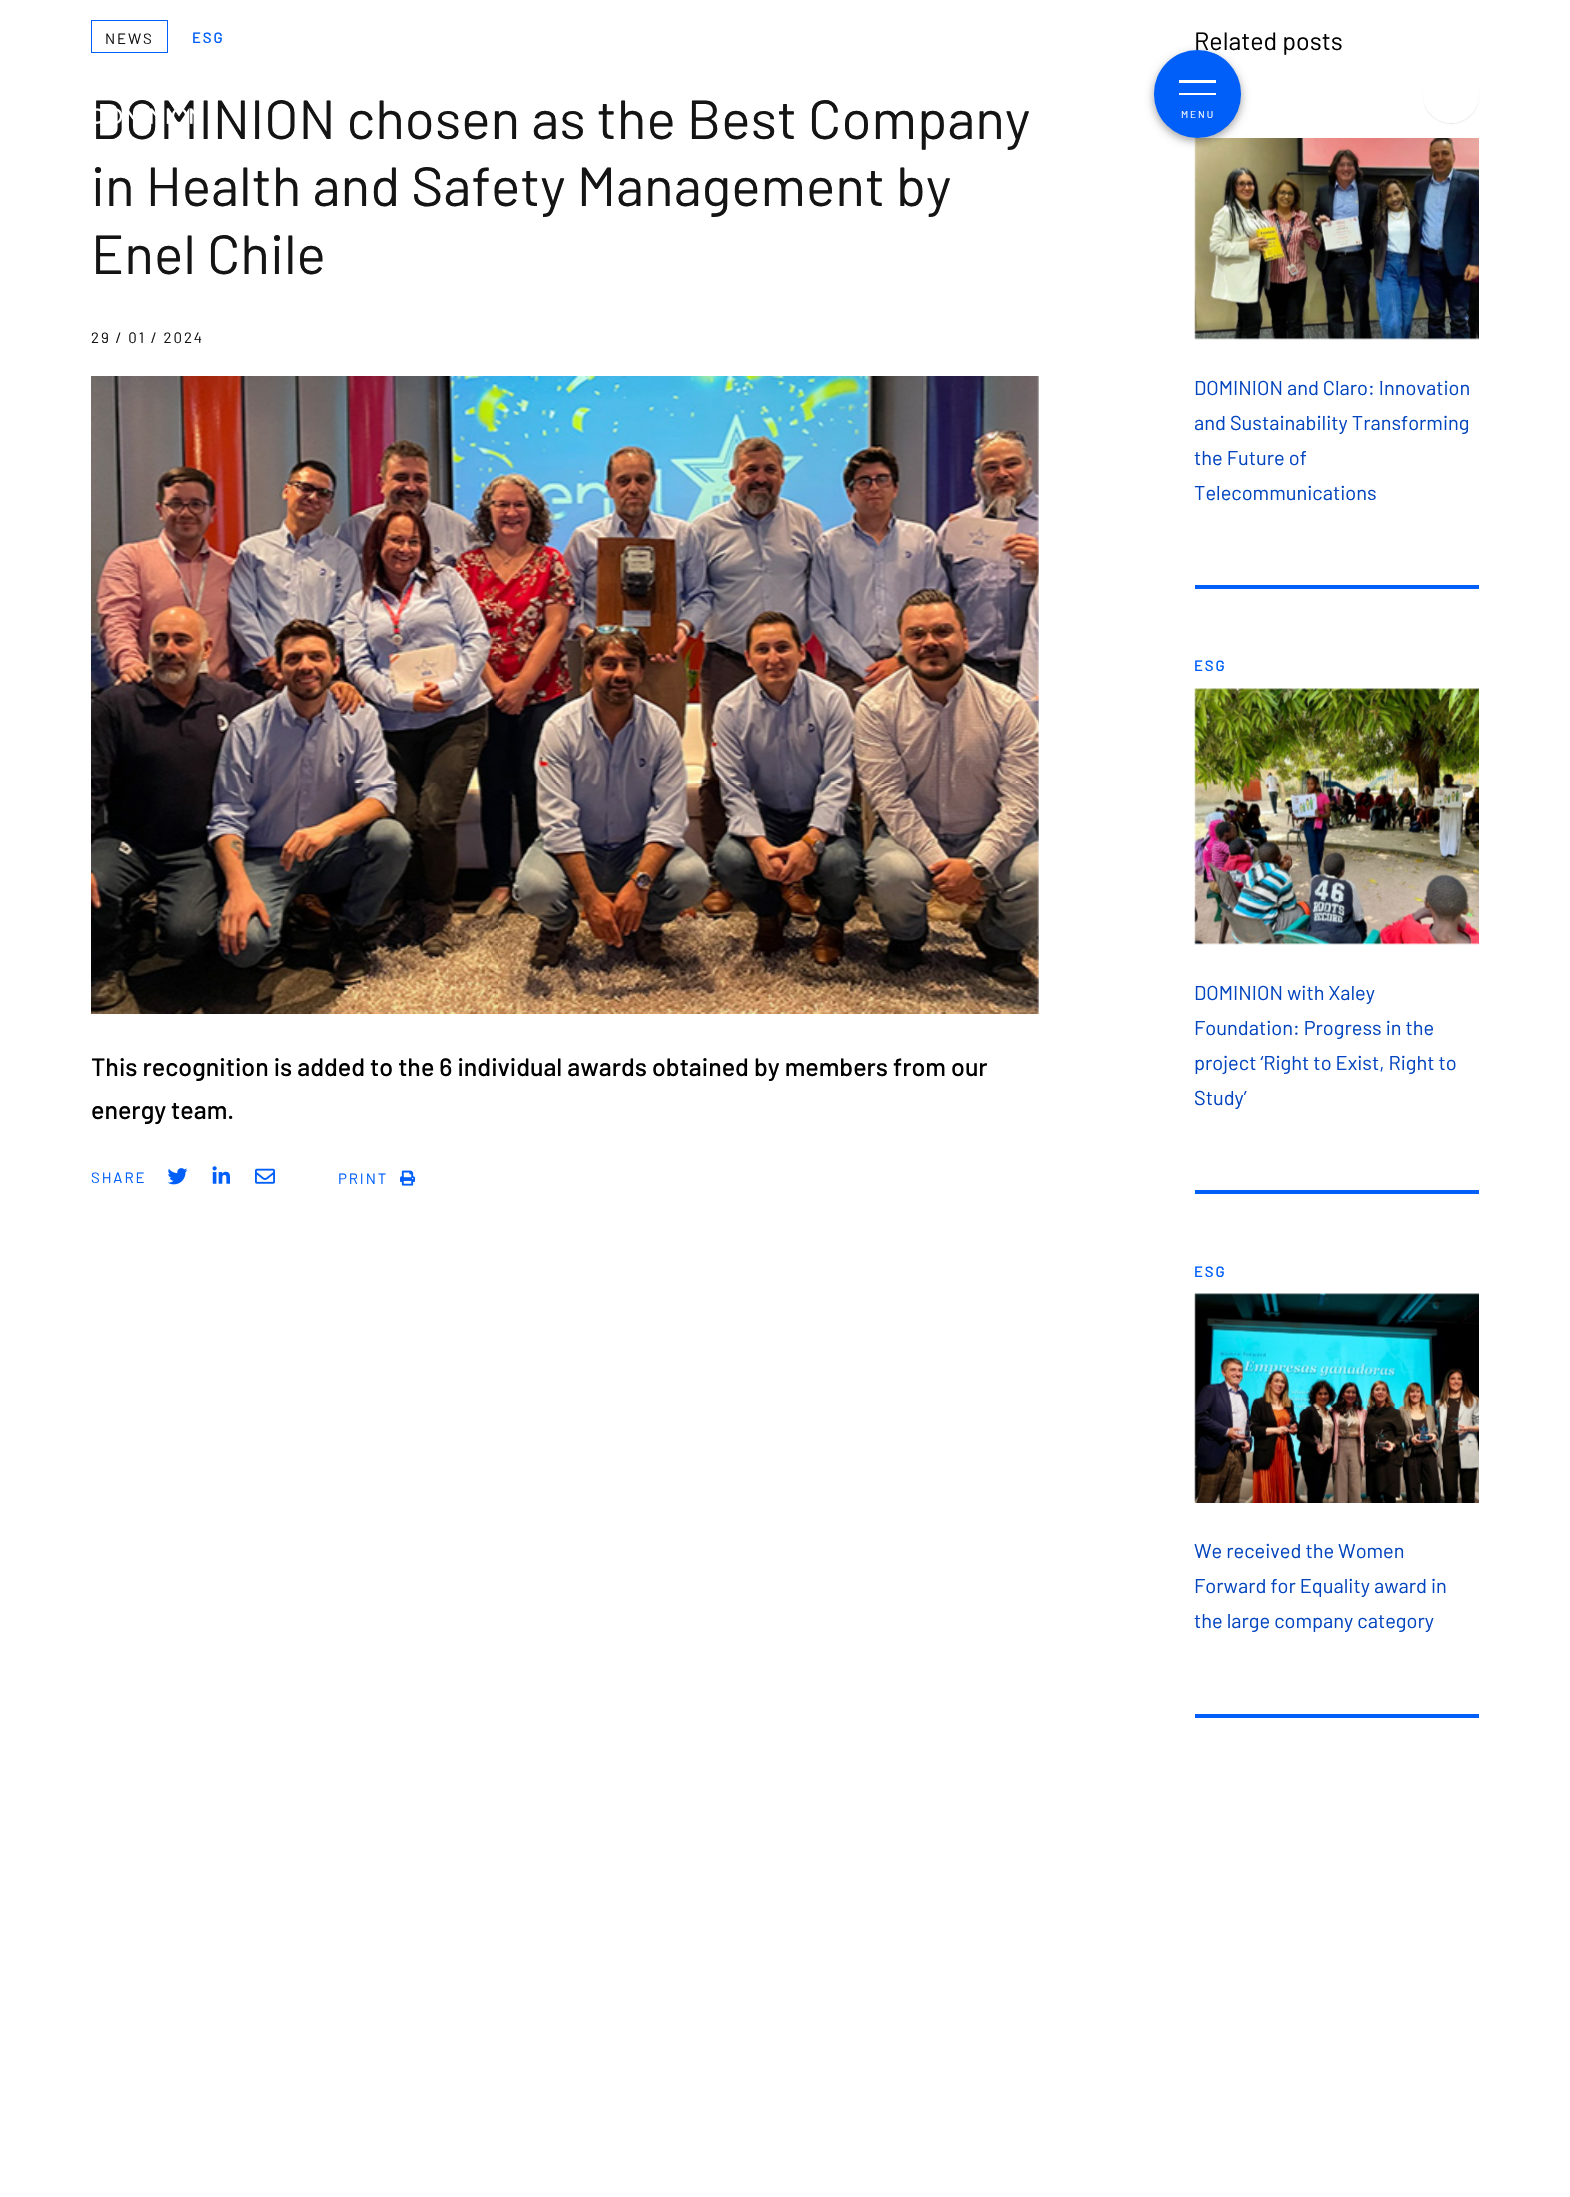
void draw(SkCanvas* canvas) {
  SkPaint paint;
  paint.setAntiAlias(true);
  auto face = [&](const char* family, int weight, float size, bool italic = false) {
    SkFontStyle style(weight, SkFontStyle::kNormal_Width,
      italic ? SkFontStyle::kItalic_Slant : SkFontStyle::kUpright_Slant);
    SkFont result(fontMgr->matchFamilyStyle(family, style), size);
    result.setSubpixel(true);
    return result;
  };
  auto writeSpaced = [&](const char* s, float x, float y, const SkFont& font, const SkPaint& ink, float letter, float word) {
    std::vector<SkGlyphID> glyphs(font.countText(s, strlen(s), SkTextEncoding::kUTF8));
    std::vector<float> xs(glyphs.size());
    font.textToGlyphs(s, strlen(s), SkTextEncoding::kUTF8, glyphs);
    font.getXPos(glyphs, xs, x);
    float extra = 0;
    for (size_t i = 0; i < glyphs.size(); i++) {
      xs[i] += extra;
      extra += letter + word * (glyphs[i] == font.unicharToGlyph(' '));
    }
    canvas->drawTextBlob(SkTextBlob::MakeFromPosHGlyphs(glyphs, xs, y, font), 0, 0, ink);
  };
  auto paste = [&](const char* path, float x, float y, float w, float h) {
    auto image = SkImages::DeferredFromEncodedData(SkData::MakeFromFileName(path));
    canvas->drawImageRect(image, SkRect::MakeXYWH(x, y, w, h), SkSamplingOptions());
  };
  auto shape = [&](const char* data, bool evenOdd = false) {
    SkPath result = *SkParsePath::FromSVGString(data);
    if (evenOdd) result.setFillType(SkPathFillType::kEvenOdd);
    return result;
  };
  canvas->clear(0xffffffff);
  paint.setStroke(true);
  paint.setStrokeWidth(1);
  paint.setColor(0xff005ff9);
  canvas->drawRect(SkRect::MakeXYWH(91.5f, 20.5f, 76, 32), paint);
  paste("img/1.png", 91, 376, 948, 638);
  paste("img/2.png", 167, 1168, 21, 17);
  paste("img/3.png", 212, 1166, 18, 18);
  paste("img/4.png", 255, 1168, 20, 16);
  paste("img/5.png", 400, 1170, 15, 16);
  paint.setStroke(false);
  canvas->drawRect(SkRect::MakeXYWH(1195, 585, 284, 4), paint);
  paste("img/6.png", 1194, 138, 285, 202);
  canvas->drawRect(SkRect::MakeXYWH(1195, 1190, 284, 4), paint);
  paste("img/7.png", 1194, 688, 285, 257);
  canvas->drawRect(SkRect::MakeXYWH(1195, 1714, 284, 4), paint);
  paste("img/8.png", 1194, 1293, 285, 210);
  paint.setColor(0x3b000000);
  paint.setMaskFilter(SkMaskFilter::MakeBlur(kNormal_SkBlurStyle, 4));
  canvas->drawRoundRect(SkRect::MakeXYWH(1154, 54, 87, 87), 43.5f, 43.5f, paint);
  paint.setMaskFilter(nullptr);
  paint.setColor(0x29000000);
  paint.setMaskFilter(SkMaskFilter::MakeBlur(kNormal_SkBlurStyle, 4));
  canvas->drawRoundRect(SkRect::MakeXYWH(1154, 54, 87, 87), 43.5f, 43.5f, paint);
  paint.setMaskFilter(nullptr);
  canvas->save();
  canvas->clipPath(shape("M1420 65H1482V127H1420ZM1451 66C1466.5 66 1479 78.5 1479 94V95C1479 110.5 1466.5 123 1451 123C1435.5 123 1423 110.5 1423 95V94C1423 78.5 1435.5 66 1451 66Z", true), true);
  paint.setColor(0x1a000000);
  paint.setMaskFilter(SkMaskFilter::MakeBlur(kNormal_SkBlurStyle, 0.5f));
  canvas->drawRoundRect(SkRect::MakeXYWH(1423, 68, 56, 56), 28, 28, paint);
  paint.setMaskFilter(nullptr);
  canvas->restore();
  paint.setStroke(true);
  paint.setColor(0xffffffff);
  canvas->drawRoundRect(SkRect::MakeXYWH(1423.5f, 66.5f, 55, 56), 27.5f, 27.5f, paint);
  auto f0 = face("Barlow", 400, 15);
  paint.setStroke(false);
  paint.setColor(0xff141414);
  writeSpaced("NEWS", 105, 44, f0, paint, 1.9f, 0);
  auto f1 = face("Barlow", 500, 15);
  paint.setColor(0xff005ff9);
  writeSpaced("ESG", 192, 43, f1, paint, 1.9f, 0);
  auto f2 = face("Barlow", 400, 55);
  paint.setColor(0xff141414);
  {
    const struct { const char* s; float x, y; } items[] = {
      {"DOMINION chosen as the Best Company", 91, 139},
      {"in Health and Safety Management by", 91, 206},
      {"Enel Chile", 91, 274},
    };
    for (auto [s, x, y] : items) {
      canvas->drawString(s, x, y, f2, paint);
    }
  }
  writeSpaced("29 / 01 / 2024", 91, 343, f0, paint, 1.9f, 0);
  auto f3 = face("Barlow", 500, 25);
  paint.setColor(0xff000000);
  canvas->drawString("This recognition is added to the 6 individual awards obtained by members from our", 91, 1076, f3, paint);
  canvas->drawString("energy team.", 91, 1119, f3, paint);
  paint.setColor(0xff005ff9);
  writeSpaced("SHARE", 91, 1183, f0, paint, 1.9f, 0);
  writeSpaced("PRINT", 338, 1184, f0, paint, 1.9f, 0);
  auto f4 = face("Barlow", 400, 25);
  paint.setColor(0xff000000);
  canvas->drawString("Related posts", 1194, 50, f4, paint);
  auto f5 = face("Barlow", 400, 20);
  paint.setColor(0xff0345bf);
  {
    const struct { const char* s; float x, y; } items[] = {
      {"DOMINION and Claro: Innovation", 1194, 395},
      {"and Sustainability Transforming", 1194, 430},
      {"the Future of", 1194, 465},
      {"Telecommunications", 1194, 500},
    };
    for (auto [s, x, y] : items) {
      canvas->drawString(s, x, y, f5, paint);
    }
  }
  paint.setColor(0xff005ff9);
  writeSpaced("ESG", 1194, 671, f1, paint, 1.9f, 0);
  paint.setColor(0xff0345bf);
  {
    const struct { const char* s; float x, y; } items[] = {
      {"DOMINION with Xaley", 1194, 1000},
      {"Foundation: Progress in the", 1194, 1035},
      {"project ‘Right to Exist, Right to", 1194, 1070},
      {"Study’", 1194, 1105},
    };
    for (auto [s, x, y] : items) {
      canvas->drawString(s, x, y, f5, paint);
    }
  }
  paint.setColor(0xff005ff9);
  writeSpaced("ESG", 1194, 1277, f1, paint, 1.9f, 0);
  paint.setColor(0xff0345bf);
  {
    const struct { const char* s; float x, y; } items[] = {
      {"We received the Women", 1194, 1558},
      {"Forward for Equality award in", 1194, 1593},
      {"the large company category", 1194, 1628},
    };
    for (auto [s, x, y] : items) {
      canvas->drawString(s, x, y, f5, paint);
    }
  }
  paste("img/9.png", 96, 108, 98, 16);
  paint.setColor(0xff005ff9);
  canvas->drawRoundRect(SkRect::MakeXYWH(1154, 50, 87, 88), 43.5f, 43.5f, paint);
  paint.setColor(0xffffffff);
  canvas->drawRect(SkRect::MakeXYWH(1179, 80, 37, 3), paint);
  canvas->drawRect(SkRect::MakeXYWH(1179, 93, 37, 2), paint);
  auto f6 = face("Barlow", 400, 10);
  writeSpaced("MENU", 1181, 118, f6, paint, 1.9f, 0);
}
